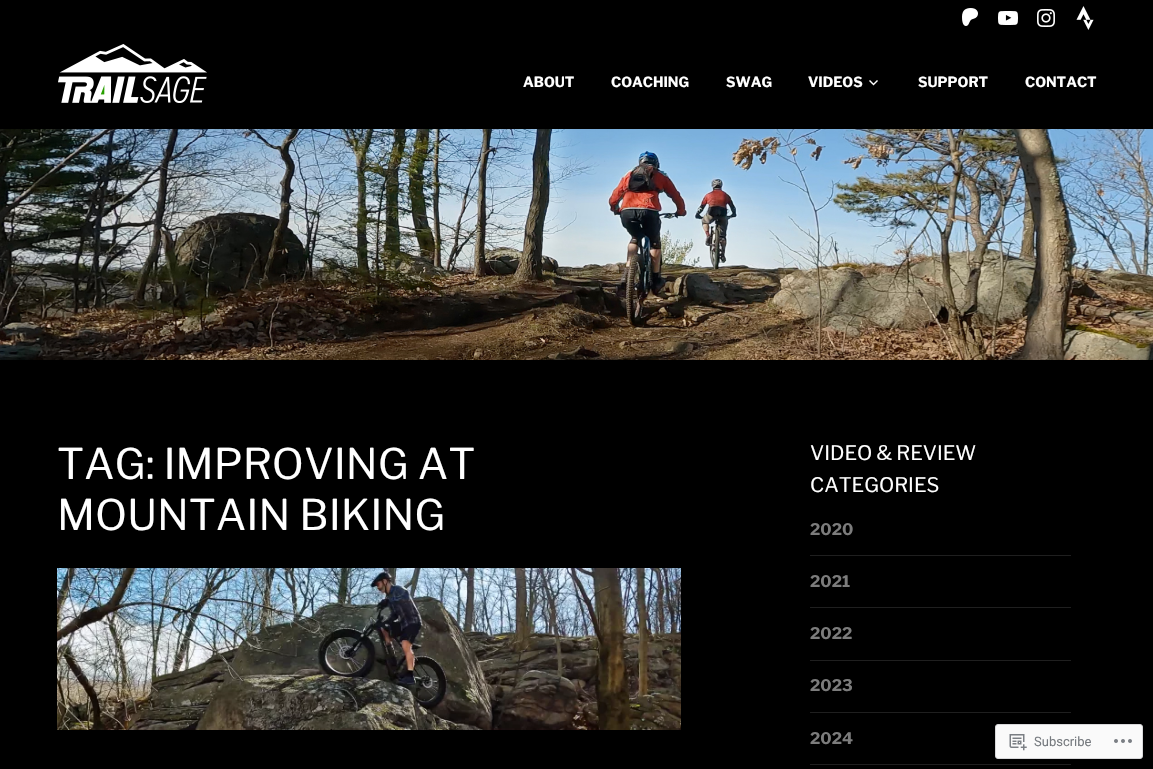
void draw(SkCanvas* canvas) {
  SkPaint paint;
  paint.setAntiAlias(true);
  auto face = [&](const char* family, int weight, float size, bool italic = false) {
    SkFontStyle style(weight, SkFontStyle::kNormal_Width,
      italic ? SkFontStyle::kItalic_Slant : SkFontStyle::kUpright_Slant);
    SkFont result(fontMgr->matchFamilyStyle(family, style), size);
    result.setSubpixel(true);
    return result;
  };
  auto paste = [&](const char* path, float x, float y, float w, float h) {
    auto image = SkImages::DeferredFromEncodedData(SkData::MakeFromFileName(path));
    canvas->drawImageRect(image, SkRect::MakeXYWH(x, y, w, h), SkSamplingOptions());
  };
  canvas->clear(0xff000000);
  paste("img/1.png", 962, 8, 16, 18);
  paste("img/2.png", 998, 11, 20, 14);
  paste("img/3.png", 1037, 9, 18, 18);
  paste("img/4.png", 1076, 6, 18, 24);
  paste("img/5.png", 58, 44, 149, 59);
  paste("img/6.png", 869, 80, 9, 6);
  paste("img/7.png", 0, 129, 1153, 231);
  paste("img/8.png", 57, 568, 624, 162);
  {
    const struct { float x, y, w, h; SkColor color; } items[] = {
      {810, 555, 261, 1, 0xff1f1f1f},
      {810, 607, 261, 1, 0xff1f1f1f},
      {810, 660, 261, 1, 0xff1f1f1f},
      {810, 712, 261, 1, 0xff1f1f1f},
      {810, 764, 261, 1, 0xff1f1f1f},
    };
    for (auto [x, y, w, h, color] : items) {
      paint.setColor(color);
      canvas->drawRect(SkRect::MakeXYWH(x, y, w, h), paint);
    }
  }
  paint.setColor(0xfffafafa);
  canvas->drawRoundRect(SkRect::MakeXYWH(995.5f, 724.5f, 147, 34), 2.5f, 2.5f, paint);
  paint.setStroke(true);
  paint.setStrokeWidth(1);
  paint.setColor(0xffd8d8da);
  canvas->drawRoundRect(SkRect::MakeXYWH(995.5f, 724.5f, 147, 34), 2.5f, 2.5f, paint);
  paste("img/9.png", 1009, 734, 18, 17);
  paste("img/10.png", 1114, 739, 18, 4);
  auto f0 = face("Libre Franklin", 700, 14);
  paint.setStroke(false);
  paint.setColor(0xffffffff);
  {
    const struct { const char* s; float x, y; } items[] = {
      {"ABOUT", 523, 87},
      {"COACHING", 611, 87},
      {"SWAG", 726, 87},
      {"VIDEOS", 808, 87},
      {"SUPPORT", 918, 87},
      {"CONTACT", 1025, 87},
    };
    for (auto [s, x, y] : items) {
      canvas->drawString(s, x, y, f0, paint);
    }
  }
  auto f1 = face("Libre Franklin", 400, 42);
  canvas->drawString("TAG: IMPROVING AT", 57, 479, f1, paint);
  canvas->drawString("MOUNTAIN BIKING", 57, 530, f1, paint);
  auto f2 = face("Libre Franklin", 400, 20);
  canvas->drawString("VIDEO & REVIEW", 810, 460, f2, paint);
  canvas->drawString("CATEGORIES", 810, 492, f2, paint);
  auto f3 = face("Libre Franklin", 700, 16);
  paint.setColor(0xff7c7c7c);
  {
    const struct { const char* s; float x, y; } items[] = {
      {"2020", 810, 535},
      {"2021", 810, 587},
      {"2022", 810, 639},
      {"2023", 810, 691},
      {"2024", 810, 744},
    };
    for (auto [s, x, y] : items) {
      canvas->drawString(s, x, y, f3, paint);
    }
  }
  auto f4 = face("Roboto", 400, 13);
  paint.setColor(0xff767a7f);
  canvas->drawString("Subscribe", 1034, 746, f4, paint);
}
